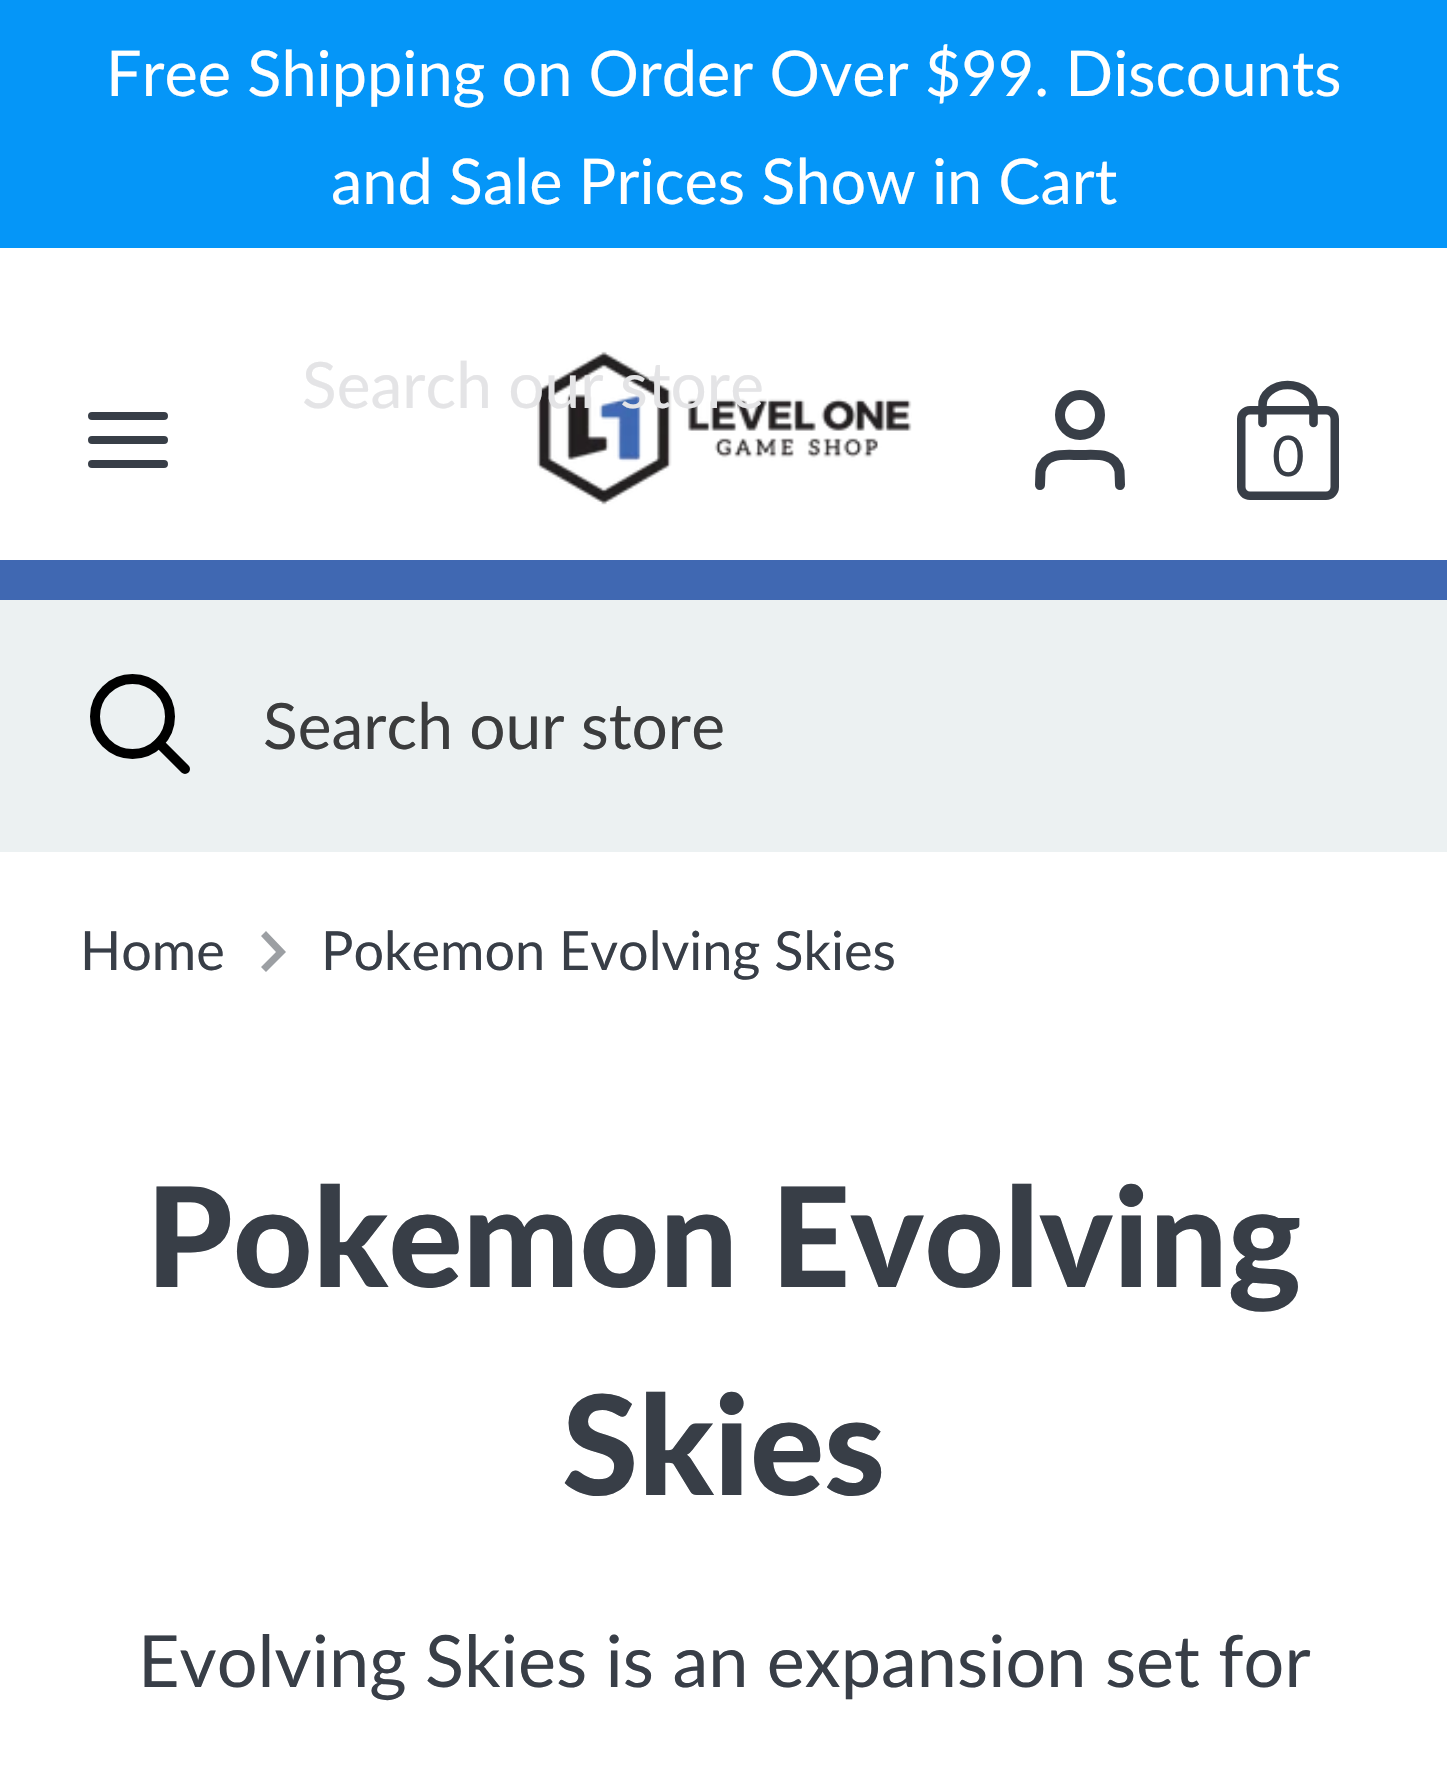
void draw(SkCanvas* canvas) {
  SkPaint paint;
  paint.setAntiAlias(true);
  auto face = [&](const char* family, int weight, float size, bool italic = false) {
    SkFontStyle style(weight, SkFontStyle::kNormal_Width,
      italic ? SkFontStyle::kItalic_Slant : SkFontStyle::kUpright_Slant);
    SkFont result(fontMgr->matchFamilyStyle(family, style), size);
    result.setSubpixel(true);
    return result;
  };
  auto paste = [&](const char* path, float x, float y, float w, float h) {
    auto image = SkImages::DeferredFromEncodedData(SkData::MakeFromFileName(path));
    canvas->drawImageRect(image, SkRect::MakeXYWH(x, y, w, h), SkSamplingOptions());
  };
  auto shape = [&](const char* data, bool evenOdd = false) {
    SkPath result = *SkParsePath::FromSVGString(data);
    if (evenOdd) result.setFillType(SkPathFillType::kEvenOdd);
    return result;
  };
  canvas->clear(0xffffffff);
  {
    const struct { float x, y, w, h; SkColor color; } items[] = {
      {0, 0, 1447, 248, 0xff0596f8},
      {0, 560, 1447, 40, 0xff4068b2},
      {0, 600, 1447, 252, 0xffecf1f2},
    };
    for (auto [x, y, w, h, color] : items) {
      paint.setColor(color);
      canvas->drawRect(SkRect::MakeXYWH(x, y, w, h), paint);
    }
  }
  paint.setStroke(true);
  paint.setStrokeWidth(10);
  paint.setColor(0xff000000);
  canvas->drawCircle(132.5f, 716.5f, 37.5f, paint);
  paint.setStrokeCap(SkPaint::kRound_Cap);
  canvas->drawPath(shape("M185 769L159 743"), paint);
  paste("img/1.png", 537, 351, 375, 154);
  paint.setStrokeWidth(8);
  paint.setColor(0xff383e47);
  canvas->drawPath(shape("M92 440H164M92 416H164M92 464H164"), paint);
  paint.setStrokeWidth(10);
  canvas->drawPath(shape("M1120 485L1119.5 471C1115.5 451.5 1094.5 455 1080 455C1065.5 455 1044.5 451.5 1040.5 471L1040 485"), paint);
  paint.setStrokeCap(SkPaint::kButt_Cap);
  canvas->drawCircle(1080, 415, 20, paint);
  paint.setStrokeWidth(8.5f);
  canvas->drawRoundRect(SkRect::MakeXYWH(1241.25f, 410.25f, 93.5f, 85.5f), 8.75f, 8.75f, paint);
  paint.setStrokeWidth(8.6f);
  paint.setStrokeCap(SkPaint::kRound_Cap);
  canvas->drawPath(shape("M1262.5 423V405.5C1262 394.5 1273.5 385 1287.5 385C1302 385 1313.5 394.5 1313.5 405.5V423"), paint);
  paint.setStroke(false);
  paint.setColor(0xff9c9fa3);
  canvas->drawPath(shape("M261 967L276 952L261 936L266 931L286 952L266 972Z"), paint);
  auto f0 = face("Lato", 400, 63);
  paint.setColor(0xffffffff);
  canvas->drawString("Free Shipping on Order Over $99. Discounts", 106, 96, f0, paint);
  canvas->drawString("and Sale Prices Show in Cart", 331, 204, f0, paint);
  auto f1 = face("Lato", 400, 64);
  paint.setColor(0xffe4e4e6);
  canvas->drawString("Search our store", 302, 408, f1, paint);
  paint.setColor(0xff3b3c3d);
  canvas->drawString("Search our store", 263, 749, f1, paint);
  auto f2 = face("Lato", 400, 56);
  paint.setColor(0xff383e47);
  canvas->drawString("0", 1272, 476, f2, paint);
  auto f3 = face("Lato", 400, 54);
  canvas->drawString("Home", 80, 970, f3, paint);
  canvas->drawString("Pokemon Evolving Skies", 321, 970, f3, paint);
  auto f4 = face("Lato", 900, 138.5f);
  canvas->drawString("Pokemon Evolving", 146, 1287, f4, paint);
  canvas->drawString("Skies", 562, 1495, f4, paint);
  auto f5 = face("Lato", 400, 72);
  canvas->drawString("Evolving Skies is an expansion set for", 138, 1687, f5, paint);
}
